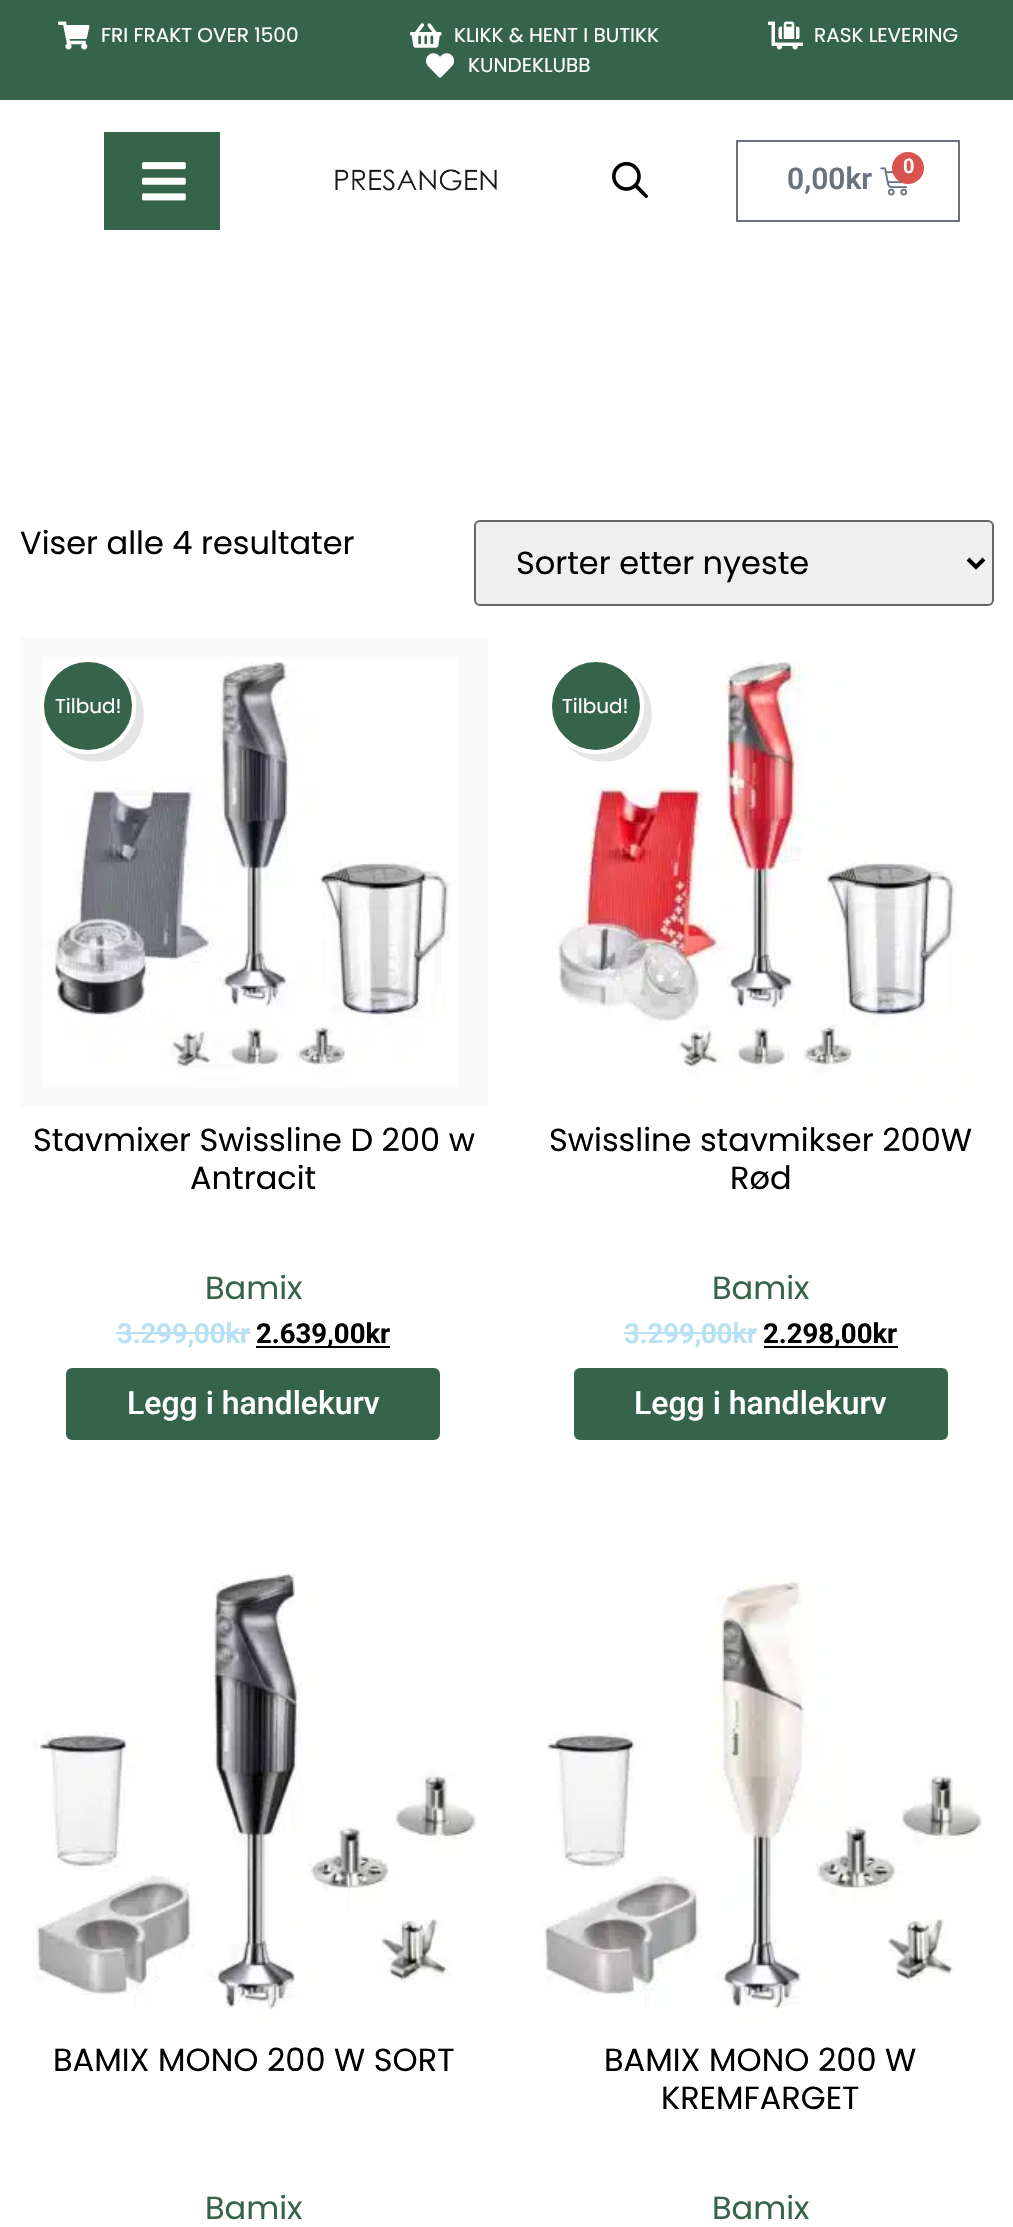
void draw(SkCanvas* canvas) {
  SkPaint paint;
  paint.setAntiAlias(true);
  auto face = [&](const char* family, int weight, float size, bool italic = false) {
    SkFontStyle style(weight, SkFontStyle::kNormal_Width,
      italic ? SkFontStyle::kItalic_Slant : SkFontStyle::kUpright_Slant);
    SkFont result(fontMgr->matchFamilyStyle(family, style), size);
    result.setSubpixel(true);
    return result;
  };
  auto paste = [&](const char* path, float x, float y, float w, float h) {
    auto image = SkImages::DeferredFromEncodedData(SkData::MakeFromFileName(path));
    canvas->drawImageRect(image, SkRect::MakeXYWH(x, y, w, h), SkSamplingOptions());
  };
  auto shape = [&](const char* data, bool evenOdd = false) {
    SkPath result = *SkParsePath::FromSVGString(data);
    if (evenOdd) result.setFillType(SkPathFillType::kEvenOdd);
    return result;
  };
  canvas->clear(0xffffffff);
  paint.setColor(0xff36644a);
  canvas->drawRect(SkRect::MakeXYWH(0, 0, 1013, 100), paint);
  paste("img/1.png", 58, 21, 32, 29);
  paste("img/2.png", 410, 23, 32, 25);
  paste("img/3.png", 768, 21, 35, 29);
  paste("img/4.png", 426, 53, 29, 25);
  canvas->drawRect(SkRect::MakeXYWH(104, 132, 116, 98), paint);
  paste("img/5.png", 142, 162, 44, 39);
  paste("img/6.png", 335, 169, 162, 22);
  paste("img/7.png", 612, 162, 36, 36);
  paint.setStroke(true);
  paint.setStrokeWidth(2);
  paint.setColor(0xff69727d);
  canvas->drawRect(SkRect::MakeXYWH(737, 141, 222, 80), paint);
  paste("img/8.png", 880, 167, 28, 29);
  paint.setStroke(false);
  paint.setColor(0xffd9534f);
  canvas->drawCircle(908, 168, 16, paint);
  paint.setColor(0xffefefef);
  canvas->drawRoundRect(SkRect::MakeXYWH(475, 521, 518, 84), 5, 5, paint);
  paint.setStroke(true);
  paint.setColor(0xff666666);
  canvas->drawRoundRect(SkRect::MakeXYWH(475, 521, 518, 84), 5, 5, paint);
  paint.setStrokeWidth(4);
  paint.setColor(0xff000000);
  canvas->drawPath(shape("M968 559L976 567L984 559"), paint);
  paint.setStroke(false);
  paint.setColor(0xfffafafa);
  canvas->drawRect(SkRect::MakeXYWH(20, 638, 468, 468), paint);
  paste("img/9.png", 43, 657, 415, 430);
  paint.setColor(0xffe5e5e5);
  canvas->drawPath(shape("M58 744C76 766 110 768 130 748C150 728 148 694 126 676C141 695 139 723 122 740C105 757 77 759 58 744Z"), paint);
  paint.setColor(0xff36644a);
  canvas->drawCircle(88, 706, 46, paint);
  paint.setStroke(true);
  paint.setColor(0xffffffff);
  canvas->drawCircle(88, 706, 46, paint);
  paint.setStroke(false);
  paint.setColor(0xffb7e0f2);
  canvas->drawRect(SkRect::MakeXYWH(116, 1332, 134, 2), paint);
  paint.setColor(0xff000000);
  canvas->drawRect(SkRect::MakeXYWH(256, 1346, 134, 2), paint);
  paint.setColor(0xff36644a);
  canvas->drawRoundRect(SkRect::MakeXYWH(66, 1368, 374, 72), 6, 6, paint);
  paste("img/10.png", 528, 638, 466, 468);
  paint.setColor(0xffe6e6e6);
  canvas->drawPath(shape("M566 744C584 766 618 768 638 748C658 728 656 694 634 676C649 695 647 723 630 740C613 757 585 759 566 744Z"), paint);
  paint.setColor(0xff36644a);
  canvas->drawCircle(596, 706, 46, paint);
  paint.setStroke(true);
  paint.setColor(0xffffffff);
  canvas->drawCircle(596, 706, 46, paint);
  paint.setStroke(false);
  paint.setColor(0xffb7e0f2);
  canvas->drawRect(SkRect::MakeXYWH(624, 1332, 132, 2), paint);
  paint.setColor(0xff000000);
  canvas->drawRect(SkRect::MakeXYWH(764, 1346, 134, 2), paint);
  paint.setColor(0xff36644a);
  canvas->drawRoundRect(SkRect::MakeXYWH(574, 1368, 374, 72), 6, 6, paint);
  paste("img/11.png", 20, 1558, 468, 468);
  paste("img/12.png", 528, 1558, 466, 468);
  auto f0 = face("Poppins", 400, 20);
  paint.setColor(0xffffffff);
  {
    const struct { const char* s; float x, y; } items[] = {
      {"FRI FRAKT OVER 1500", 101, 42},
      {"KLIKK & HENT I BUTIKK", 454, 42},
      {"RASK LEVERING", 814, 42},
      {"KUNDEKLUBB", 468, 72},
    };
    for (auto [s, x, y] : items) {
      canvas->drawString(s, x, y, f0, paint);
    }
  }
  auto f1 = face("Roboto", 600, 30);
  paint.setColor(0xff69727d);
  canvas->drawString("0,00kr", 787, 189, f1, paint);
  auto f2 = face("Roboto", 600, 20);
  paint.setColor(0xffffffff);
  canvas->drawString("0", 903, 173, f2, paint);
  auto f3 = face("Poppins", 400, 32);
  paint.setColor(0xff000000);
  canvas->drawString("Viser alle 4 resultater", 20, 554, f3, paint);
  canvas->drawString("Sorter etter nyeste", 516, 574, f3, paint);
  paint.setColor(0xffffffff);
  canvas->drawString("Tilbud!", 55, 713, f0, paint);
  paint.setColor(0xff000000);
  canvas->drawString("Stavmixer Swissline D 200 w", 33, 1151, f3, paint);
  canvas->drawString("Antracit", 190, 1189, f3, paint);
  paint.setColor(0xff36644a);
  canvas->drawString("Bamix", 205, 1299, f3, paint);
  auto f4 = face("Roboto", 600, 27.5f);
  paint.setColor(0xffb7e0f2);
  canvas->drawString("3.299,00kr", 117, 1343, f4, paint);
  auto f5 = face("Roboto", 700, 27.5f);
  paint.setColor(0xff000000);
  canvas->drawString("2.639,00kr", 256, 1343, f5, paint);
  auto f6 = face("Roboto", 500, 32);
  paint.setColor(0xffffffff);
  canvas->drawString("Legg i handlekurv", 127, 1414, f6, paint);
  canvas->drawString("Tilbud!", 562, 713, f0, paint);
  paint.setColor(0xff000000);
  canvas->drawString("Swissline stavmikser 200W", 549, 1151, f3, paint);
  canvas->drawString("Rød", 730, 1189, f3, paint);
  paint.setColor(0xff36644a);
  canvas->drawString("Bamix", 712, 1299, f3, paint);
  paint.setColor(0xffb7e0f2);
  canvas->drawString("3.299,00kr", 624, 1343, f4, paint);
  paint.setColor(0xff000000);
  canvas->drawString("2.298,00kr", 763, 1343, f5, paint);
  paint.setColor(0xffffffff);
  canvas->drawString("Legg i handlekurv", 634, 1414, f6, paint);
  paint.setColor(0xff000000);
  canvas->drawString("BAMIX MONO 200 W SORT", 53, 2071, f3, paint);
  paint.setColor(0xff36644a);
  canvas->drawString("Bamix", 205, 2219, f3, paint);
  paint.setColor(0xff000000);
  canvas->drawString("BAMIX MONO 200 W", 604, 2071, f3, paint);
  canvas->drawString("KREMFARGET", 661, 2109, f3, paint);
  paint.setColor(0xff36644a);
  canvas->drawString("Bamix", 712, 2219, f3, paint);
}
